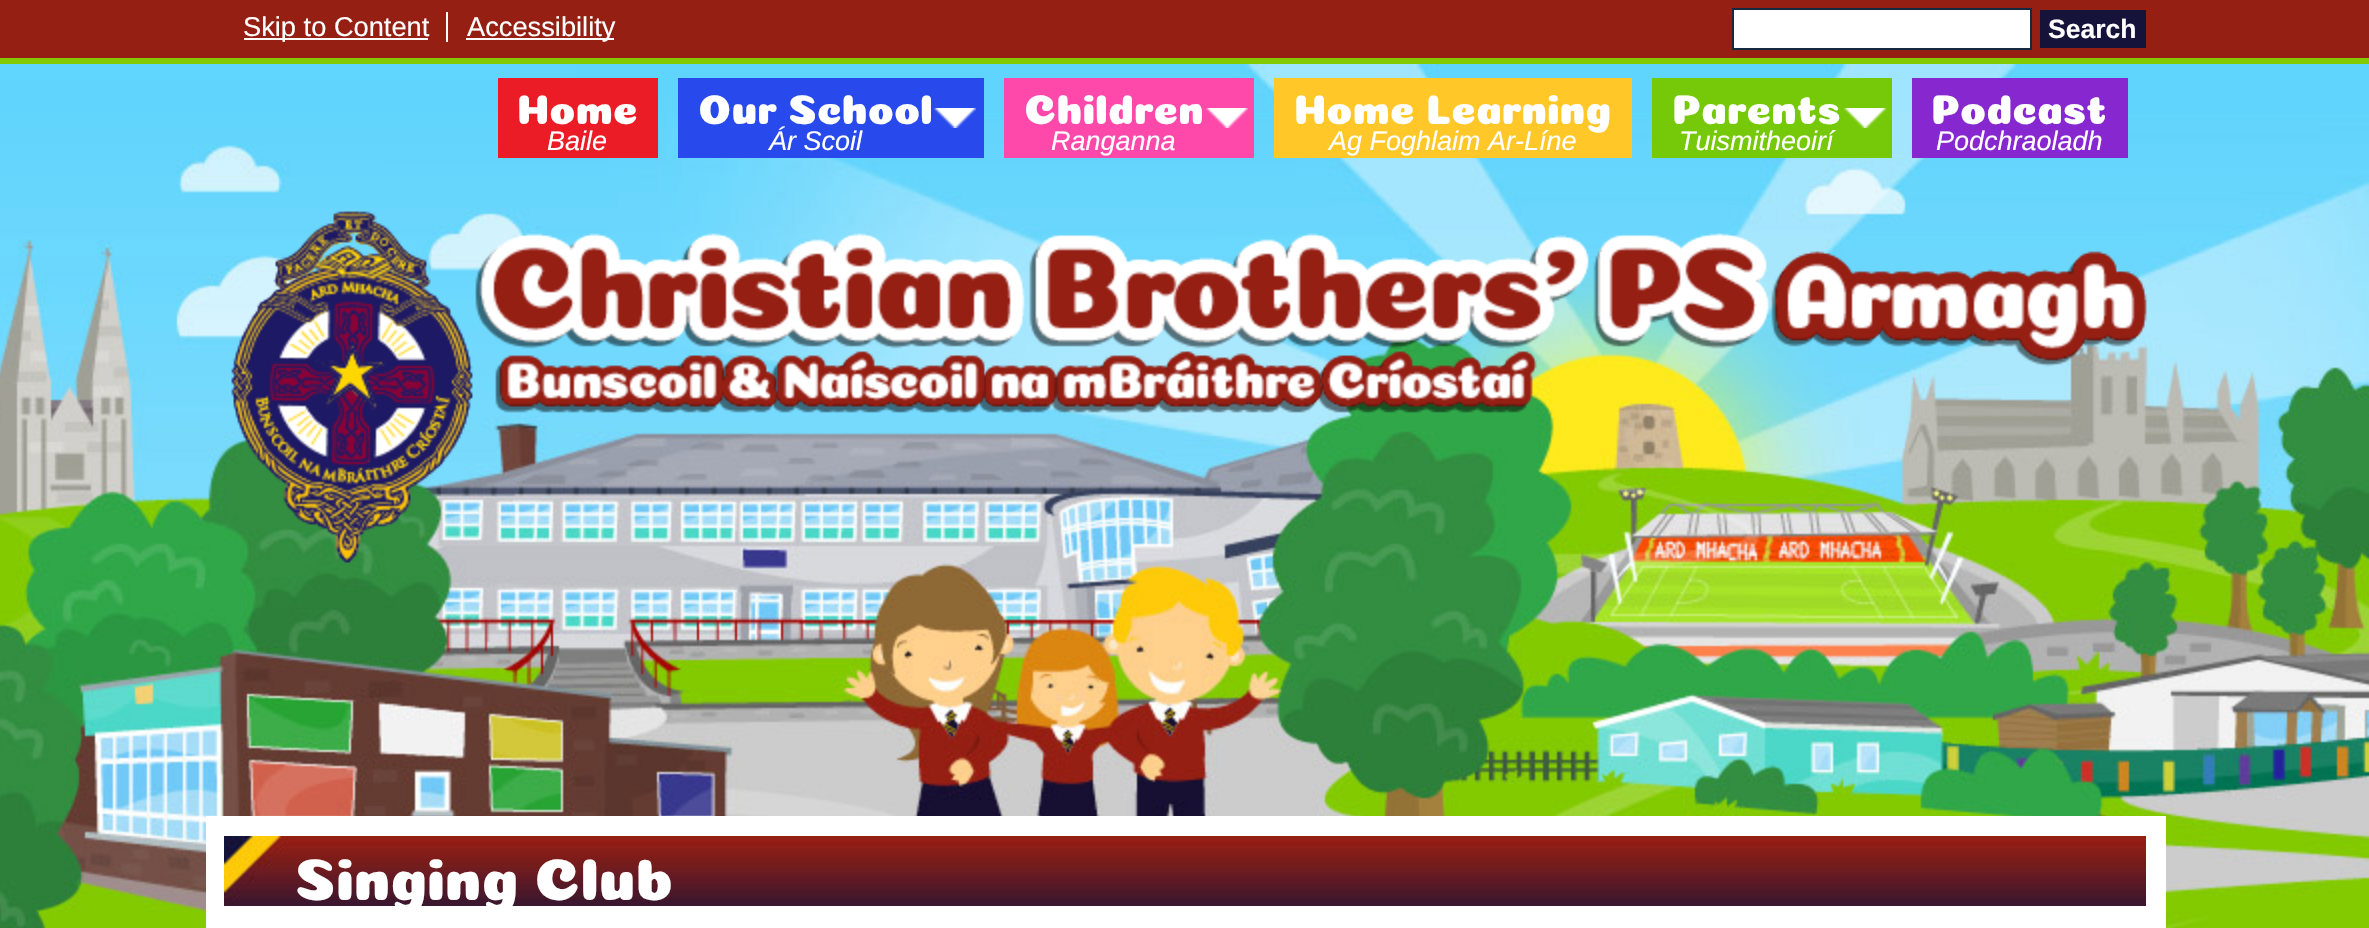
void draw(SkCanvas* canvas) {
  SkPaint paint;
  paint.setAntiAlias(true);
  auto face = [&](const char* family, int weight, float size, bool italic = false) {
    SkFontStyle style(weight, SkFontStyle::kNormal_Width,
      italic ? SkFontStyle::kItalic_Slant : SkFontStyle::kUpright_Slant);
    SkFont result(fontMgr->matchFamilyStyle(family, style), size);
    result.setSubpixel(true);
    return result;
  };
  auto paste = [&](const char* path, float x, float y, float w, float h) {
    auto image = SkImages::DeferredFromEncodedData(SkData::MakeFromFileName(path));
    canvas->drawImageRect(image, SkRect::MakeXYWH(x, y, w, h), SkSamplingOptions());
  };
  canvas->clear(0xff83ca00);
  paste("img/1.png", 0, 64, 2369, 864);
  {
    const struct { float x, y, w, h; SkColor color; } items[] = {
      {0, 0, 2369, 58, 0xff951f13},
      {446, 12, 2, 30, 0xffffffff},
      {244, 38, 184, 2, 0xffffffff},
      {466, 38, 148, 2, 0xffffffff},
    };
    for (auto [x, y, w, h, color] : items) {
      paint.setColor(color);
      canvas->drawRect(SkRect::MakeXYWH(x, y, w, h), paint);
    }
  }
  canvas->drawRect(SkRect::MakeXYWH(1733, 9, 298, 40), paint);
  paint.setStroke(true);
  paint.setStrokeWidth(2);
  paint.setColor(0xff152941);
  canvas->drawRect(SkRect::MakeXYWH(1733, 9, 298, 40), paint);
  paint.setStroke(false);
  {
    const struct { float x, y, w, h; SkColor color; } items[] = {
      {2040, 10, 106, 38, 0xff15133a},
      {498, 78, 160, 80, 0xffeb1c26},
      {678, 78, 306, 80, 0xff2849ec},
    };
    for (auto [x, y, w, h, color] : items) {
      paint.setColor(color);
      canvas->drawRect(SkRect::MakeXYWH(x, y, w, h), paint);
    }
  }
  paste("img/2.png", 934, 108, 42, 20);
  paint.setColor(0xfffe49aa);
  canvas->drawRect(SkRect::MakeXYWH(1004, 78, 250, 80), paint);
  paste("img/3.png", 1206, 108, 42, 20);
  paint.setColor(0xffffc728);
  canvas->drawRect(SkRect::MakeXYWH(1274, 78, 358, 80), paint);
  paint.setColor(0xff76c909);
  canvas->drawRect(SkRect::MakeXYWH(1652, 78, 240, 80), paint);
  paste("img/4.png", 1844, 108, 42, 20);
  paint.setColor(0xff8727cf);
  canvas->drawRect(SkRect::MakeXYWH(1912, 78, 216, 80), paint);
  paste("img/5.png", 231, 211, 1916, 352);
  paste("img/6.png", 231, 211, 1916, 352);
  paint.setColor(0xffffffff);
  canvas->drawRect(SkRect::MakeXYWH(206, 816, 1960, 112), paint);
  paste("img/7.png", 224, 836, 1922, 70);
  auto f0 = face("Liberation Sans", 400, 27.25f);
  canvas->drawString("Skip to Content", 243, 36, f0, paint);
  canvas->drawString("Accessibility", 467, 36, f0, paint);
  auto f1 = face("Liberation Sans", 700, 26.5f);
  canvas->drawString("Search", 2048, 38, f1, paint);
  auto f2 = face("Coiny", 400, 41.5f);
  canvas->drawString("Home", 517, 124, f2, paint);
  auto f3 = face("Liberation Sans", 400, 27, true);
  canvas->drawString("Baile", 547, 150, f3, paint);
  canvas->drawString("Our School", 698, 124, f2, paint);
  canvas->drawString("Ár Scoil", 769, 150, f3, paint);
  canvas->drawString("Children", 1024, 124, f2, paint);
  canvas->drawString("Ranganna", 1051, 150, f3, paint);
  canvas->drawString("Home Learning", 1294, 124, f2, paint);
  canvas->drawString("Ag Foghlaim Ar-Líne", 1329, 150, f3, paint);
  canvas->drawString("Parents", 1672, 124, f2, paint);
  canvas->drawString("Tuismitheoirí", 1679, 150, f3, paint);
  canvas->drawString("Podcast", 1931, 124, f2, paint);
  canvas->drawString("Podchraoladh", 1936, 150, f3, paint);
  auto f4 = face("Coiny", 400, 59);
  canvas->drawString("Singing Club", 295, 900, f4, paint);
}
